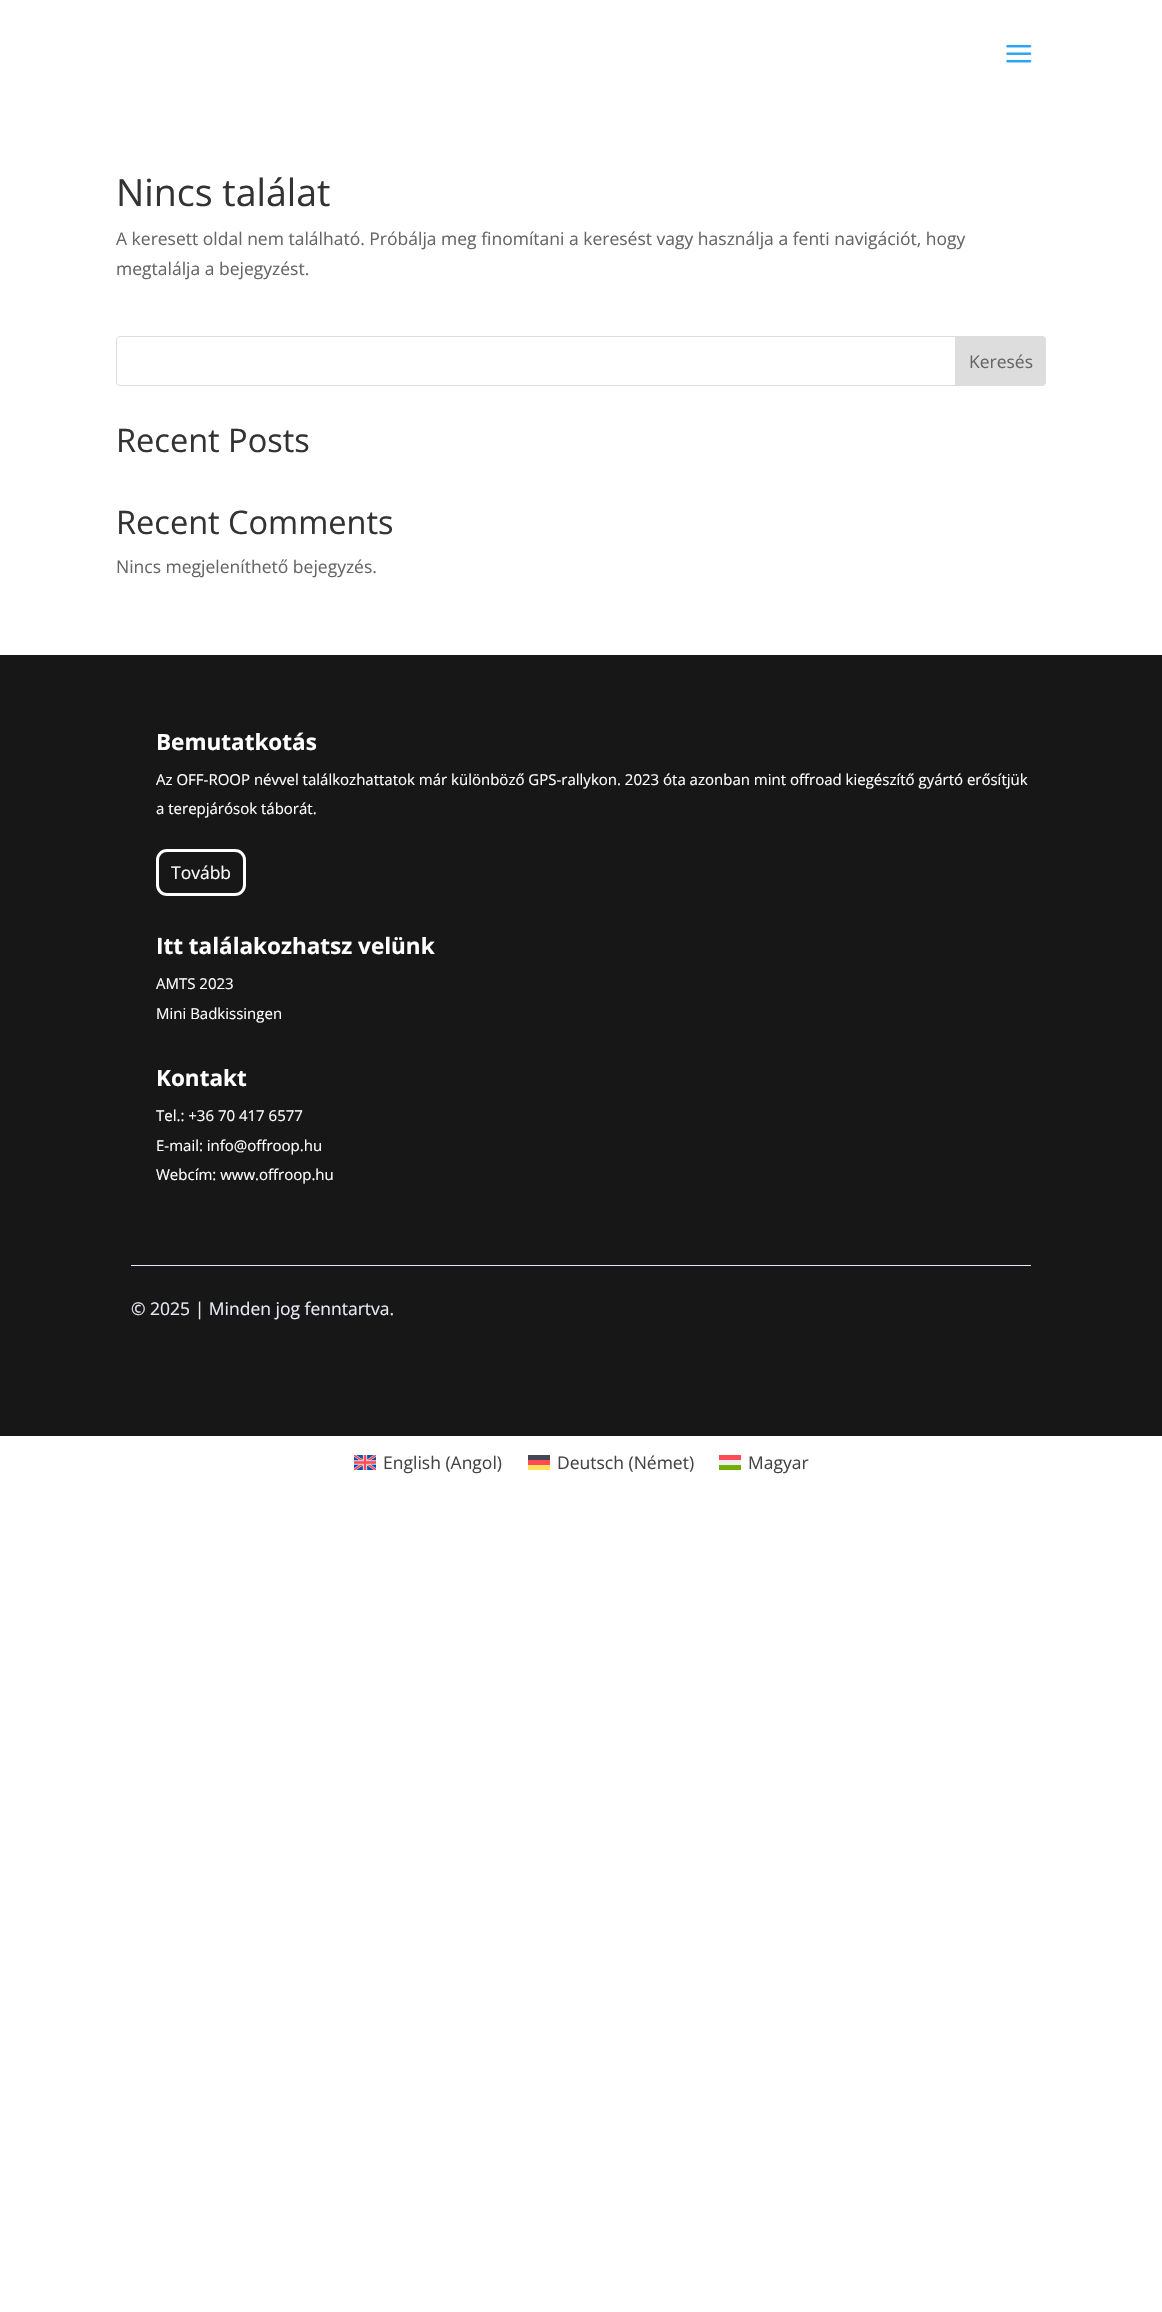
void draw(SkCanvas* canvas) {
  SkPaint paint;
  paint.setAntiAlias(true);
  auto face = [&](const char* family, int weight, float size, bool italic = false) {
    SkFontStyle style(weight, SkFontStyle::kNormal_Width,
      italic ? SkFontStyle::kItalic_Slant : SkFontStyle::kUpright_Slant);
    SkFont result(fontMgr->matchFamilyStyle(family, style), size);
    result.setSubpixel(true);
    return result;
  };
  auto paste = [&](const char* path, float x, float y, float w, float h) {
    auto image = SkImages::DeferredFromEncodedData(SkData::MakeFromFileName(path));
    canvas->drawImageRect(image, SkRect::MakeXYWH(x, y, w, h), SkSamplingOptions());
  };
  auto shape = [&](const char* data, bool evenOdd = false) {
    SkPath result = *SkParsePath::FromSVGString(data);
    if (evenOdd) result.setFillType(SkPathFillType::kEvenOdd);
    return result;
  };
  canvas->clear(0xffffffff);
  paste("img/1.png", 1006, 44, 26, 19);
  paint.setStroke(true);
  paint.setStrokeWidth(1);
  paint.setColor(0xffdddddd);
  canvas->drawRoundRect(SkRect::MakeXYWH(116.5f, 336.5f, 929, 49), 3.5f, 3.5f, paint);
  paint.setStroke(false);
  canvas->drawPath(shape("M955.5 336.5H1042C1044 336.5 1045.5 338 1045.5 340V382C1045.5 384 1044 385.5 1042 385.5H955.5Z"), paint);
  paint.setStroke(true);
  canvas->drawPath(shape("M955.5 336.5H1042C1044 336.5 1045.5 338 1045.5 340V382C1045.5 384 1044 385.5 1042 385.5H955.5Z"), paint);
  paint.setStroke(false);
  paint.setColor(0xff171717);
  canvas->drawRect(SkRect::MakeXYWH(0, 655, 1162, 781), paint);
  paint.setStroke(true);
  paint.setStrokeWidth(3);
  paint.setColor(0xffffffff);
  canvas->drawRoundRect(SkRect::MakeXYWH(157.5f, 850.5f, 87, 44), 9.5f, 9.5f, paint);
  paint.setStroke(false);
  paint.setColor(0xffe7e9f5);
  canvas->drawRect(SkRect::MakeXYWH(131, 1265, 900, 1), paint);
  paste("img/2.png", 354, 1455, 22, 15);
  {
    const struct { float x, y, w, h; SkColor color; } items[] = {
      {528, 1455, 22, 5, 0xff464655},
      {528, 1460, 22, 5, 0xffff4b55},
      {528, 1465, 22, 5, 0xffffe15a},
      {719, 1455, 22, 5, 0xffff4b55},
      {719, 1460, 22, 5, 0xfff0f0f0},
      {719, 1465, 22, 5, 0xff73af00},
    };
    for (auto [x, y, w, h, color] : items) {
      paint.setColor(color);
      canvas->drawRect(SkRect::MakeXYWH(x, y, w, h), paint);
    }
  }
  auto f0 = face("Open Sans", 400, 37.5f);
  paint.setColor(0xff333333);
  canvas->drawString("Nincs találat", 116, 206, f0, paint);
  auto f1 = face("Open Sans", 400, 17.5f);
  paint.setColor(0xff666666);
  {
    const struct { const char* s; float x, y; } items[] = {
      {"A keresett oldal nem található. Próbálja meg finomítani a keresést vagy használja a fenti navigációt, hogy", 116, 245},
      {"megtalálja a bejegyzést.", 116, 275},
      {"Keresés", 969, 368},
    };
    for (auto [s, x, y] : items) {
      canvas->drawString(s, x, y, f1, paint);
    }
  }
  auto f2 = face("Open Sans", 400, 32.5f);
  paint.setColor(0xff333333);
  canvas->drawString("Recent Posts", 116, 452, f2, paint);
  canvas->drawString("Recent Comments", 116, 534, f2, paint);
  paint.setColor(0xff666666);
  canvas->drawString("Nincs megjeleníthető bejegyzés.", 116, 573, f1, paint);
  auto f3 = face("Open Sans", 700, 22.5f);
  paint.setColor(0xffffffff);
  canvas->drawString("Bemutatkotás", 156, 750, f3, paint);
  auto f4 = face("Open Sans", 400, 15);
  canvas->drawString("Az OFF-ROOP névvel találkozhattatok már különböző GPS-rallykon. 2023 óta azonban mint offroad kiegészítő gyártó erősítjük", 156, 785, f4, paint);
  canvas->drawString("a terepjárósok táborát.", 156, 814, f4, paint);
  canvas->drawString("Tovább", 171, 879, f1, paint);
  canvas->drawString("Itt találakozhatsz velünk", 156, 954, f3, paint);
  canvas->drawString("AMTS 2023", 156, 989, f4, paint);
  canvas->drawString("Mini Badkissingen", 156, 1019, f4, paint);
  canvas->drawString("Kontakt", 156, 1086, f3, paint);
  {
    const struct { const char* s; float x, y; } items[] = {
      {"Tel.: +36 70 417 6577", 156, 1121},
      {"E-mail: info@offroop.hu", 156, 1151},
      {"Webcím: www.offroop.hu", 156, 1180},
    };
    for (auto [s, x, y] : items) {
      canvas->drawString(s, x, y, f4, paint);
    }
  }
  paint.setColor(0xffe7e9f5);
  canvas->drawString("© 2025 | Minden jog fenntartva.", 131, 1315, f1, paint);
  paint.setColor(0xff444444);
  {
    const struct { const char* s; float x, y; } items[] = {
      {"English (Angol)", 383, 1469},
      {"Deutsch (Német)", 557, 1469},
      {"Magyar", 748, 1469},
    };
    for (auto [s, x, y] : items) {
      canvas->drawString(s, x, y, f1, paint);
    }
  }
}
